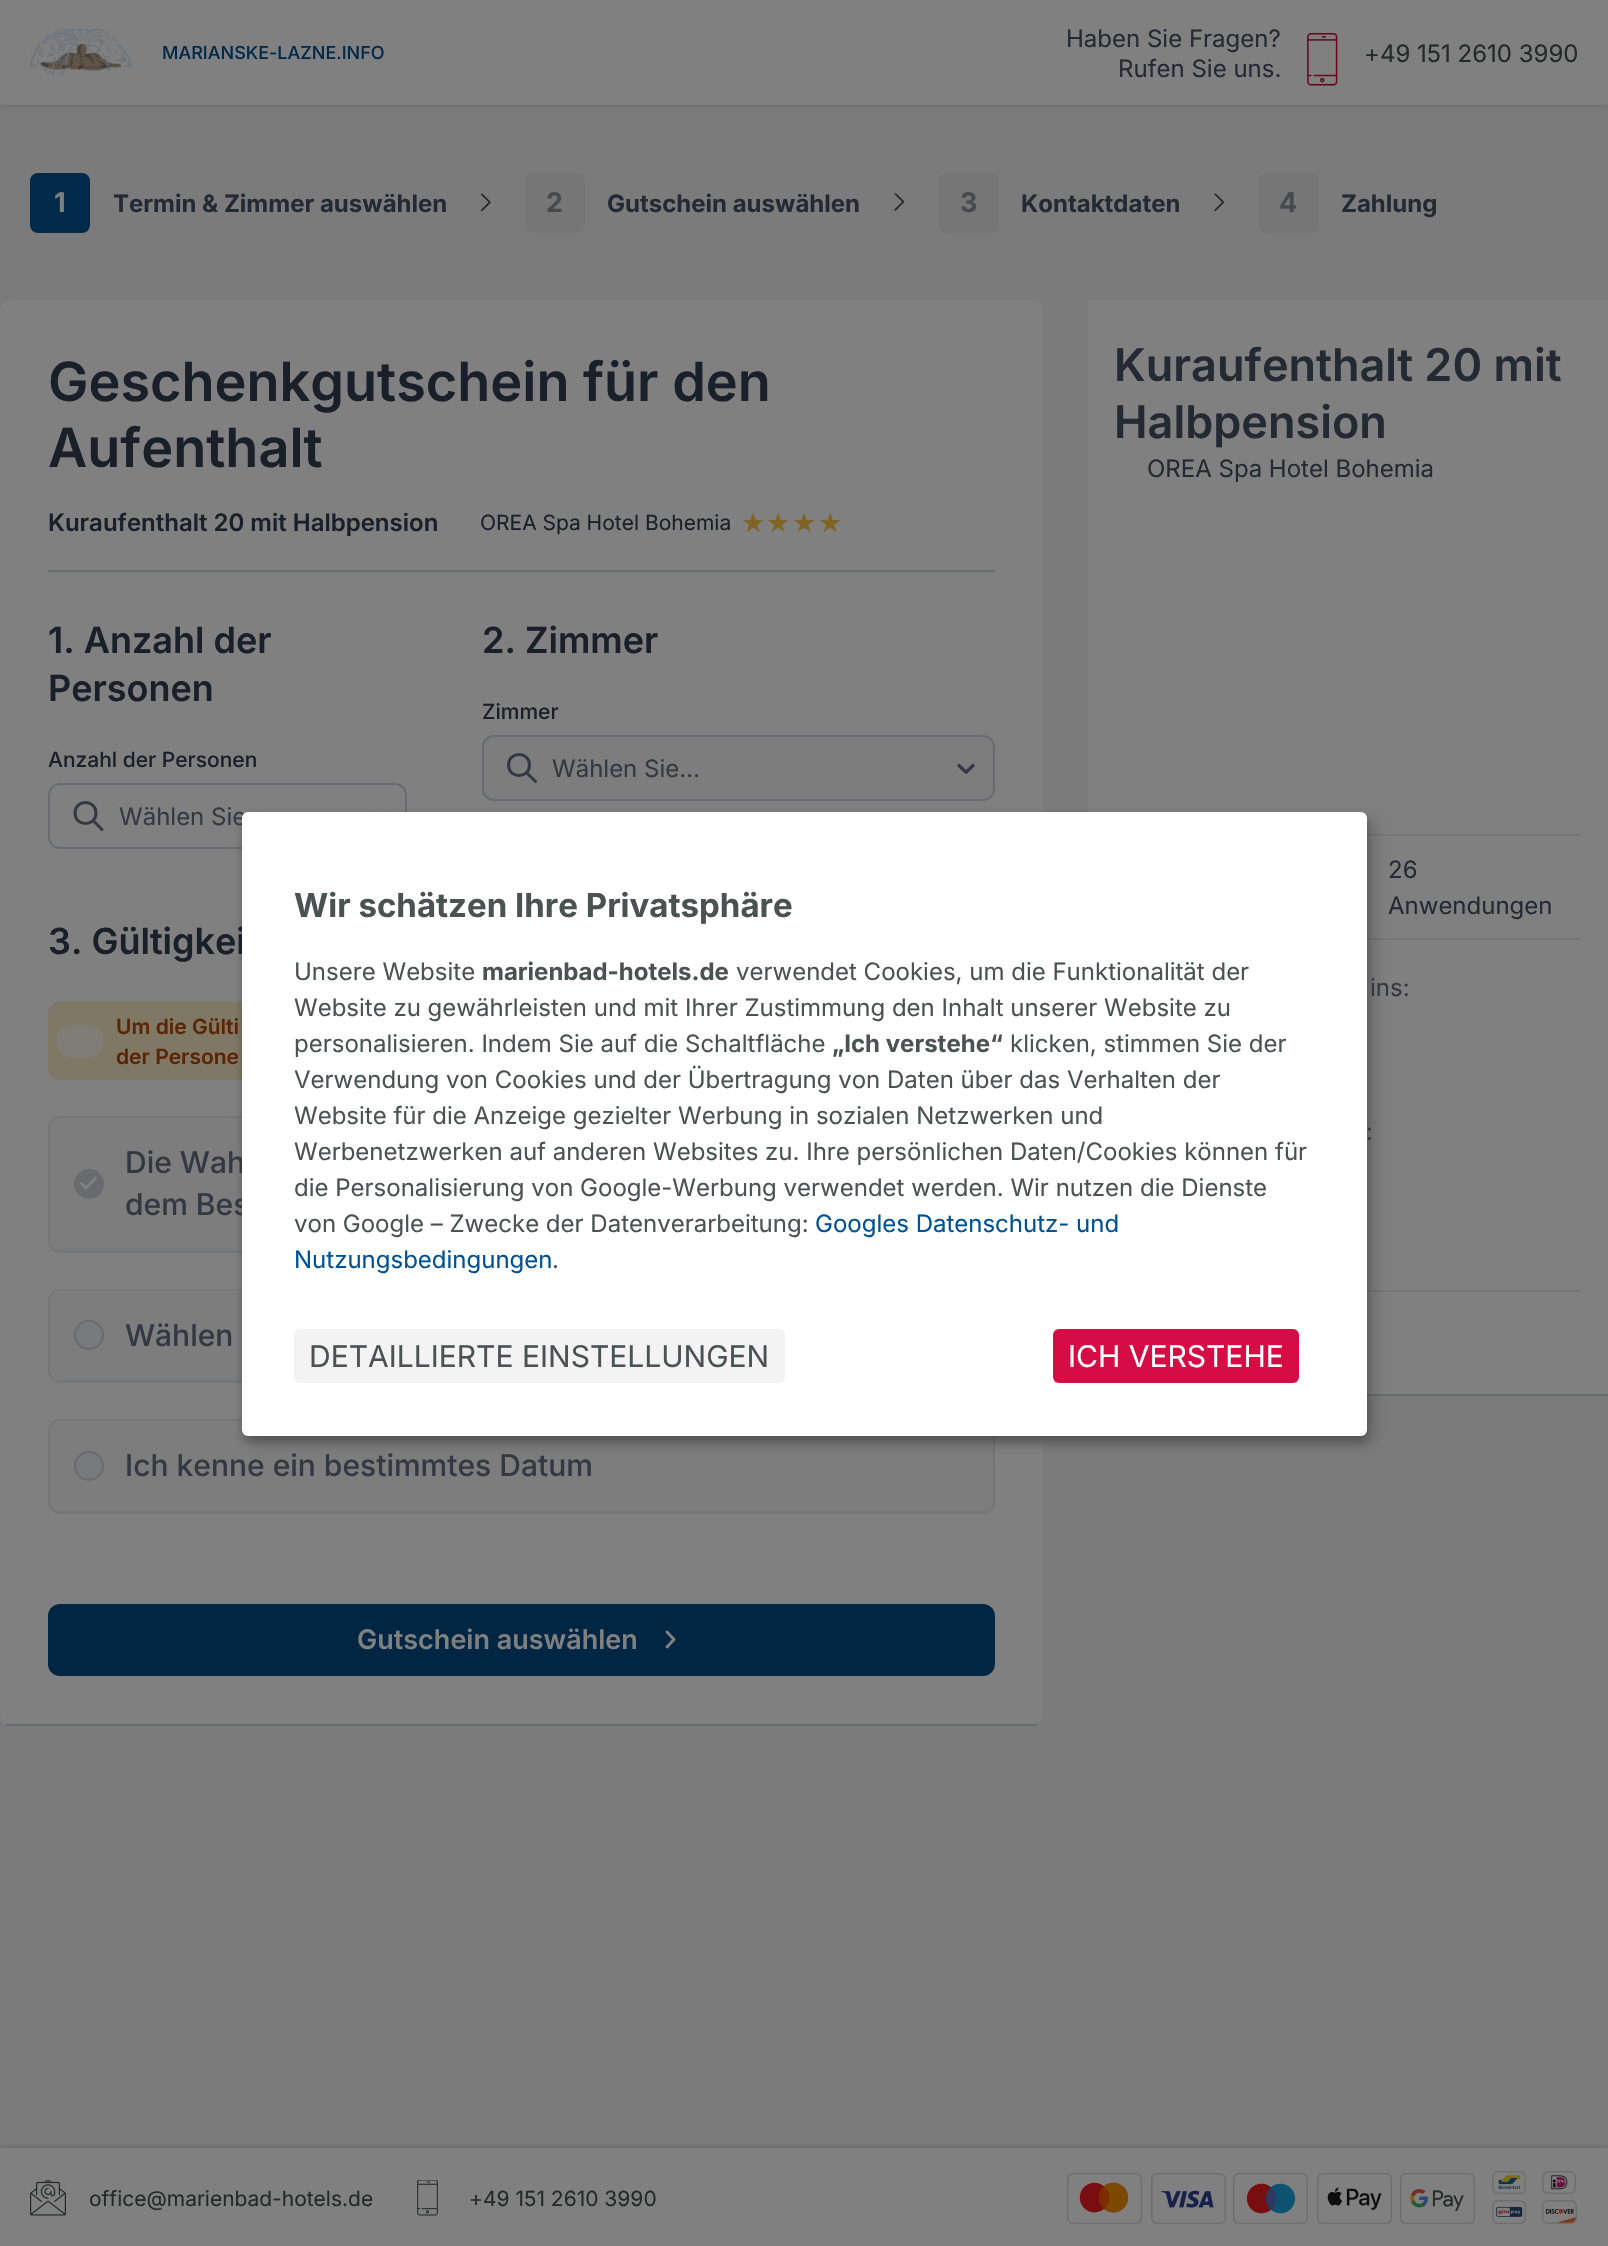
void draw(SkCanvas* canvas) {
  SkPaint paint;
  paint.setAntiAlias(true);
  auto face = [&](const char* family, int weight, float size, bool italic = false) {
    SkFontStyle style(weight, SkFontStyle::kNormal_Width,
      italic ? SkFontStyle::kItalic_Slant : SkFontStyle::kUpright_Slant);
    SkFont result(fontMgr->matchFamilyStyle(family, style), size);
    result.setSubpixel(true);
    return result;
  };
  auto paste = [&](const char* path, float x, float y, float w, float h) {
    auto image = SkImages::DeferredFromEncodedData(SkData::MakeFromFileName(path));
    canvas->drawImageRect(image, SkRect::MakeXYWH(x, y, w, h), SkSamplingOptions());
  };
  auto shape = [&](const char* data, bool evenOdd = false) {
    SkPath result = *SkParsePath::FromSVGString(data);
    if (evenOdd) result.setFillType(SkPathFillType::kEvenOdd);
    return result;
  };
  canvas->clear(0xff7b7b7c);
  paint.setColor(0x33000000);
  paint.setMaskFilter(SkMaskFilter::MakeBlur(kNormal_SkBlurStyle, 3));
  canvas->drawRect(SkRect::MakeXYWH(0, 0, 1608, 105), paint);
  paint.setMaskFilter(nullptr);
  paint.setColor(0xff808080);
  canvas->drawRect(SkRect::MakeXYWH(0, 0, 1608, 105), paint);
  paste("img/1.png", 30, 29, 102, 47);
  paste("img/2.png", 1307, 33, 31, 53);
  paint.setColor(0xff00294a);
  canvas->drawRoundRect(SkRect::MakeXYWH(30, 173, 60, 60), 8, 8, paint);
  paste("img/3.png", 480, 193, 11, 19);
  paint.setColor(0xff767676);
  canvas->drawRoundRect(SkRect::MakeXYWH(525, 173, 60, 60), 8, 8, paint);
  paste("img/4.png", 894, 193, 11, 18);
  canvas->drawRoundRect(SkRect::MakeXYWH(939, 173, 60, 60), 8, 8, paint);
  paste("img/5.png", 1214, 193, 11, 19);
  canvas->drawRoundRect(SkRect::MakeXYWH(1259, 173, 60, 60), 8, 8, paint);
  paint.setColor(0xff808080);
  canvas->drawRoundRect(SkRect::MakeXYWH(0, 300, 1043, 1425), 12, 12, paint);
  paint.setColor(0xff686b6f);
  canvas->drawRect(SkRect::MakeXYWH(6, 1724, 1031, 2), paint);
  canvas->drawRect(SkRect::MakeXYWH(48, 570, 947, 2), paint);
  paint.setStroke(true);
  paint.setStrokeWidth(2);
  canvas->drawRoundRect(SkRect::MakeXYWH(49, 784, 357, 64), 11, 11, paint);
  paint.setStrokeWidth(3);
  paint.setStrokeCap(SkPaint::kRound_Cap);
  paint.setStrokeJoin(SkPaint::kRound_Join);
  paint.setColor(0xff333843);
  canvas->drawPath(shape("M102 829.5L93 820.5M96 813C96 827 75 827 75 813C75 799 96 799 96 813Z"), paint);
  paste("img/6.png", 370, 811, 16, 1);
  paint.setStroke(false);
  paint.setColor(0xff7d7d7e);
  canvas->drawRoundRect(SkRect::MakeXYWH(483, 736, 511, 64), 11, 11, paint);
  paint.setStroke(true);
  paint.setStrokeWidth(2);
  paint.setStrokeCap(SkPaint::kButt_Cap);
  paint.setStrokeJoin(SkPaint::kMiter_Join);
  paint.setColor(0xff686b6f);
  canvas->drawRoundRect(SkRect::MakeXYWH(483, 736, 511, 64), 11, 11, paint);
  paint.setStrokeWidth(3);
  paint.setStrokeCap(SkPaint::kRound_Cap);
  paint.setStrokeJoin(SkPaint::kRound_Join);
  paint.setColor(0xff333843);
  canvas->drawPath(shape("M535.5 781.5L526.5 772.5M529.5 765C529.5 779 508.5 779 508.5 765C508.5 751 529.5 751 529.5 765Z"), paint);
  paste("img/7.png", 957, 763, 18, 11);
  paint.setStroke(false);
  paint.setColor(0xff7f7864);
  canvas->drawRoundRect(SkRect::MakeXYWH(48, 1002, 947, 78), 12, 12, paint);
  paint.setColor(0xff807d76);
  canvas->drawRoundRect(SkRect::MakeXYWH(56, 1025, 48, 33), 16.5f, 16.5f, paint);
  paint.setColor(0xff7d7d7e);
  canvas->drawRoundRect(SkRect::MakeXYWH(49, 1117, 945, 135), 11, 11, paint);
  paint.setStroke(true);
  paint.setStrokeWidth(2);
  paint.setStrokeCap(SkPaint::kButt_Cap);
  paint.setStrokeJoin(SkPaint::kMiter_Join);
  paint.setColor(0xff757678);
  canvas->drawRoundRect(SkRect::MakeXYWH(49, 1117, 945, 135), 11, 11, paint);
  paint.setStroke(false);
  canvas->drawRect(SkRect::MakeXYWH(56, 1250, 186, 1), paint);
  paint.setColor(0xff686b6f);
  canvas->drawCircle(89, 1184, 14, paint);
  paint.setStroke(true);
  canvas->drawCircle(89, 1184, 14, paint);
  paint.setStrokeWidth(3);
  paint.setStrokeCap(SkPaint::kRound_Cap);
  paint.setStrokeJoin(SkPaint::kRound_Join);
  paint.setColor(0xff808080);
  canvas->drawPath(shape("M95.5 1178L86 1188L81.5 1183.5"), paint);
  paint.setStroke(false);
  paint.setColor(0xff7d7d7e);
  canvas->drawRoundRect(SkRect::MakeXYWH(49, 1290, 945, 92), 11, 11, paint);
  paint.setStroke(true);
  paint.setStrokeWidth(2);
  paint.setStrokeCap(SkPaint::kButt_Cap);
  paint.setStrokeJoin(SkPaint::kMiter_Join);
  paint.setColor(0xff757678);
  canvas->drawRoundRect(SkRect::MakeXYWH(49, 1290, 945, 92), 11, 11, paint);
  paint.setStroke(false);
  paint.setColor(0xff7d7d7e);
  canvas->drawRoundRect(SkRect::MakeXYWH(50, 1290, 943, 92), 12, 12, paint);
  paint.setColor(0xff757678);
  canvas->drawRect(SkRect::MakeXYWH(56, 1380, 186, 2), paint);
  paint.setColor(0xff797a7c);
  canvas->drawCircle(89, 1335, 14, paint);
  paint.setStroke(true);
  paint.setColor(0xff686b6f);
  canvas->drawCircle(89, 1335, 14, paint);
  paint.setStroke(false);
  paint.setColor(0xff7d7d7e);
  canvas->drawRoundRect(SkRect::MakeXYWH(49, 1420, 945, 93), 11, 11, paint);
  paint.setStroke(true);
  paint.setColor(0xff757678);
  canvas->drawRoundRect(SkRect::MakeXYWH(49, 1420, 945, 93), 11, 11, paint);
  paint.setStroke(false);
  canvas->drawRect(SkRect::MakeXYWH(56, 1511, 931, 1), paint);
  paint.setColor(0xff797a7c);
  canvas->drawCircle(89, 1466, 14, paint);
  paint.setStroke(true);
  paint.setColor(0xff686b6f);
  canvas->drawCircle(89, 1466, 14, paint);
  paint.setStroke(false);
  paint.setColor(0xff002644);
  canvas->drawRoundRect(SkRect::MakeXYWH(49, 1605, 945, 70), 11, 11, paint);
  paint.setStroke(true);
  canvas->drawRoundRect(SkRect::MakeXYWH(49, 1605, 945, 70), 11, 11, paint);
  paint.setStrokeWidth(3);
  paint.setStrokeCap(SkPaint::kRound_Cap);
  paint.setStrokeJoin(SkPaint::kRound_Join);
  paint.setColor(0xff808080);
  canvas->drawPath(shape("M667 1647L674 1639.5L667 1632"), paint);
  paint.setStroke(false);
  {
    const struct { float x, y, w, h; SkColor color; } items[] = {
      {1088, 300, 520, 1094, 0xff808080},
      {1367, 1394, 241, 2, 0xff686b6f},
      {1367, 834, 214, 2, 0xff757678},
      {1367, 938, 214, 2, 0xff757678},
      {1367, 1290, 214, 2, 0xff757678},
    };
    for (auto [x, y, w, h, color] : items) {
      paint.setColor(color);
      canvas->drawRect(SkRect::MakeXYWH(x, y, w, h), paint);
    }
  }
  paint.setColor(0x33000000);
  paint.setMaskFilter(SkMaskFilter::MakeBlur(kNormal_SkBlurStyle, 3));
  canvas->drawRect(SkRect::MakeXYWH(0, 2148, 1608, 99), paint);
  paint.setMaskFilter(nullptr);
  paint.setColor(0xff808080);
  canvas->drawRect(SkRect::MakeXYWH(0, 2148, 1608, 98), paint);
  paste("img/8.png", 30, 2180, 36, 36);
  paste("img/9.png", 417, 2180, 21, 36);
  paste("img/10.png", 1067, 2173, 75, 51);
  paste("img/11.png", 1151, 2173, 75, 51);
  paste("img/12.png", 1233, 2173, 75, 51);
  paste("img/13.png", 1317, 2173, 75, 51);
  paste("img/14.png", 1400, 2173, 75, 51);
  paste("img/15.png", 1492, 2171, 34, 23);
  paste("img/16.png", 1542, 2171, 34, 23);
  paste("img/17.png", 1492, 2200, 34, 24);
  paste("img/18.png", 1542, 2200, 35, 24);
  paint.setColor(0x30000000);
  paint.setMaskFilter(SkMaskFilter::MakeBlur(kNormal_SkBlurStyle, 7.5f));
  canvas->drawRoundRect(SkRect::MakeXYWH(249, 819, 1125, 624), 6, 6, paint);
  paint.setMaskFilter(nullptr);
  paint.setColor(0x33000000);
  paint.setMaskFilter(SkMaskFilter::MakeBlur(kNormal_SkBlurStyle, 4.5f));
  canvas->drawRoundRect(SkRect::MakeXYWH(242, 818, 1125, 624), 6, 6, paint);
  paint.setMaskFilter(nullptr);
  auto f0 = face("Inter", 500, 18);
  paint.setColor(0xff00294a);
  canvas->drawString("MARIANSKE-LAZNE.INFO", 162, 59, f0, paint);
  auto f1 = face("Inter", 400, 24);
  paint.setColor(0xff242a34);
  canvas->drawString("Haben Sie Fragen?", 1066, 47, f1, paint);
  paint.setColor(0xff262929);
  canvas->drawString("+49 151 2610 3990", 1364, 62, f1, paint);
  paint.setColor(0xff242a34);
  canvas->drawString("Rufen Sie uns.", 1118, 77, f1, paint);
  auto f2 = face("Inter", 700, 27);
  paint.setColor(0xff808080);
  canvas->drawString("1", 54, 212, f2, paint);
  auto f3 = face("Inter", 700, 24);
  paint.setColor(0xff242a34);
  canvas->drawString("Termin & Zimmer auswählen", 113, 212, f3, paint);
  paint.setColor(0xff454a4f);
  canvas->drawString("2", 546, 212, f2, paint);
  paint.setColor(0xff242a34);
  canvas->drawString("Gutschein auswählen", 607, 212, f3, paint);
  paint.setColor(0xff454a4f);
  canvas->drawString("3", 960, 212, f2, paint);
  paint.setColor(0xff242a34);
  canvas->drawString("Kontaktdaten", 1021, 212, f3, paint);
  paint.setColor(0xff454a4f);
  canvas->drawString("4", 1279, 212, f2, paint);
  paint.setColor(0xff242a34);
  canvas->drawString("Zahlung", 1341, 212, f3, paint);
  auto f4 = face("Inter", 600, 54);
  paint.setColor(0xff1a202a);
  canvas->drawString("Geschenkgutschein für den", 48, 401, f4, paint);
  canvas->drawString("Aufenthalt", 48, 467, f4, paint);
  auto f5 = face("Inter", 600, 24);
  canvas->drawString("Kuraufenthalt 20 mit Halbpension", 48, 531, f5, paint);
  auto f6 = face("Inter", 400, 21);
  canvas->drawString("OREA Spa Hotel Bohemia", 480, 530, f6, paint);
  auto f7 = face("DejaVu Sans", 400, 27);
  paint.setColor(0xff7f6426);
  {
    const struct { const char* s; float x, y; } items[] = {
      {"★", 741, 532},
      {"★", 766, 532},
      {"★", 792, 532},
      {"★", 818, 532},
    };
    for (auto [s, x, y] : items) {
      canvas->drawString(s, x, y, f7, paint);
    }
  }
  auto f8 = face("Inter", 600, 36);
  paint.setColor(0xff1a202a);
  canvas->drawString("1. Anzahl der", 48, 653, f8, paint);
  canvas->drawString("Personen", 48, 701, f8, paint);
  auto f9 = face("Inter", 500, 21);
  canvas->drawString("Anzahl der Personen", 48, 767, f9, paint);
  paint.setColor(0xff333843);
  canvas->drawString("Wählen Sie", 119, 825, f1, paint);
  paint.setColor(0xff1a202a);
  canvas->drawString("2. Zimmer", 482, 653, f8, paint);
  canvas->drawString("Zimmer", 482, 719, f9, paint);
  paint.setColor(0xff333843);
  canvas->drawString("Wählen Sie…", 552, 777, f1, paint);
  paint.setColor(0xff1a202a);
  canvas->drawString("3. Gültigkei", 48, 954, f8, paint);
  auto f10 = face("Inter", 600, 21);
  paint.setColor(0xff5b2404);
  canvas->drawString("Um die Gülti", 116, 1034, f10, paint);
  canvas->drawString("der Persone", 116, 1064, f10, paint);
  auto f11 = face("Inter", 500, 30);
  paint.setColor(0xff333843);
  {
    const struct { const char* s; float x, y; } items[] = {
      {"Die Wah", 125, 1173},
      {"dem Bes", 125, 1215},
      {"Wählen", 125, 1346},
      {"Ich kenne ein bestimmtes Datum", 125, 1476},
    };
    for (auto [s, x, y] : items) {
      canvas->drawString(s, x, y, f11, paint);
    }
  }
  auto f12 = face("Inter", 600, 27);
  paint.setColor(0xff808080);
  canvas->drawString("Gutschein auswählen", 357, 1649, f12, paint);
  auto f13 = face("Inter", 600, 45);
  paint.setColor(0xff242a34);
  canvas->drawString("Kuraufenthalt 20 mit", 1114, 381, f13, paint);
  canvas->drawString("Halbpension", 1114, 438, f13, paint);
  {
    const struct { const char* s; float x, y; } items[] = {
      {"OREA Spa Hotel Bohemia", 1147, 477},
      {"26", 1388, 878},
      {"Anwendungen", 1388, 914},
    };
    for (auto [s, x, y] : items) {
      canvas->drawString(s, x, y, f1, paint);
    }
  }
  paint.setColor(0xff333843);
  canvas->drawString("ins:", 1370, 996, f1, paint);
  canvas->drawString(":", 1366, 1140, f1, paint);
  paint.setColor(0xff262929);
  canvas->drawString("office@marienbad-hotels.de", 89, 2206, f6, paint);
  canvas->drawString("+49 151 2610 3990", 469, 2206, f6, paint);
  paint.setColor(0xffffffff);
  canvas->drawRoundRect(SkRect::MakeXYWH(242, 812, 1125, 624), 6, 6, paint);
  auto f14 = face("Inter", 700, 33);
  paint.setColor(0xff4b5252);
  canvas->drawString("Wir schätzen Ihre Privatsphäre", 294, 917, f14, paint);
  canvas->drawString("Unsere Website", 294, 980, f1, paint);
  canvas->drawString("marienbad-hotels.de", 482, 980, f3, paint);
  {
    const struct { const char* s; float x, y; } items[] = {
      {"verwendet Cookies, um die Funktionalität der", 736, 980},
      {"Website zu gewährleisten und mit Ihrer Zustimmung den Inhalt unserer Website zu", 294, 1016},
      {"personalisieren. Indem Sie auf die Schaltfläche", 294, 1052},
    };
    for (auto [s, x, y] : items) {
      canvas->drawString(s, x, y, f1, paint);
    }
  }
  canvas->drawString("„Ich verstehe“", 832, 1052, f3, paint);
  {
    const struct { const char* s; float x, y; } items[] = {
      {"klicken, stimmen Sie der", 1010, 1052},
      {"Verwendung von Cookies und der Übertragung von Daten über das Verhalten der", 294, 1088},
      {"Website für die Anzeige gezielter Werbung in sozialen Netzwerken und", 294, 1124},
      {"Werbenetzwerken auf anderen Websites zu. Ihre persönlichen Daten/Cookies können für", 294, 1160},
      {"die Personalisierung von Google-Werbung verwendet werden. Wir nutzen die Dienste", 294, 1196},
      {"von Google – Zwecke der Datenverarbeitung:", 294, 1232},
    };
    for (auto [s, x, y] : items) {
      canvas->drawString(s, x, y, f1, paint);
    }
  }
  paint.setColor(0xff005294);
  canvas->drawString("Googles Datenschutz- und", 815, 1232, f1, paint);
  canvas->drawString("Nutzungsbedingungen", 294, 1268, f1, paint);
  paint.setColor(0xff4b5252);
  canvas->drawString(".", 552, 1268, f1, paint);
  paint.setColor(0xfff3f3f3);
  canvas->drawRoundRect(SkRect::MakeXYWH(294, 1329, 491, 54), 6, 6, paint);
  auto f15 = face("Inter", 400, 30);
  paint.setColor(0xff4b5252);
  canvas->drawString("DETAILLIERTE EINSTELLUNGEN", 309, 1367, f15, paint);
  paint.setColor(0xffd60d45);
  canvas->drawRoundRect(SkRect::MakeXYWH(1053, 1329, 246, 54), 6, 6, paint);
  paint.setColor(0xffffffff);
  canvas->drawString("ICH VERSTEHE", 1068, 1367, f15, paint);
}
